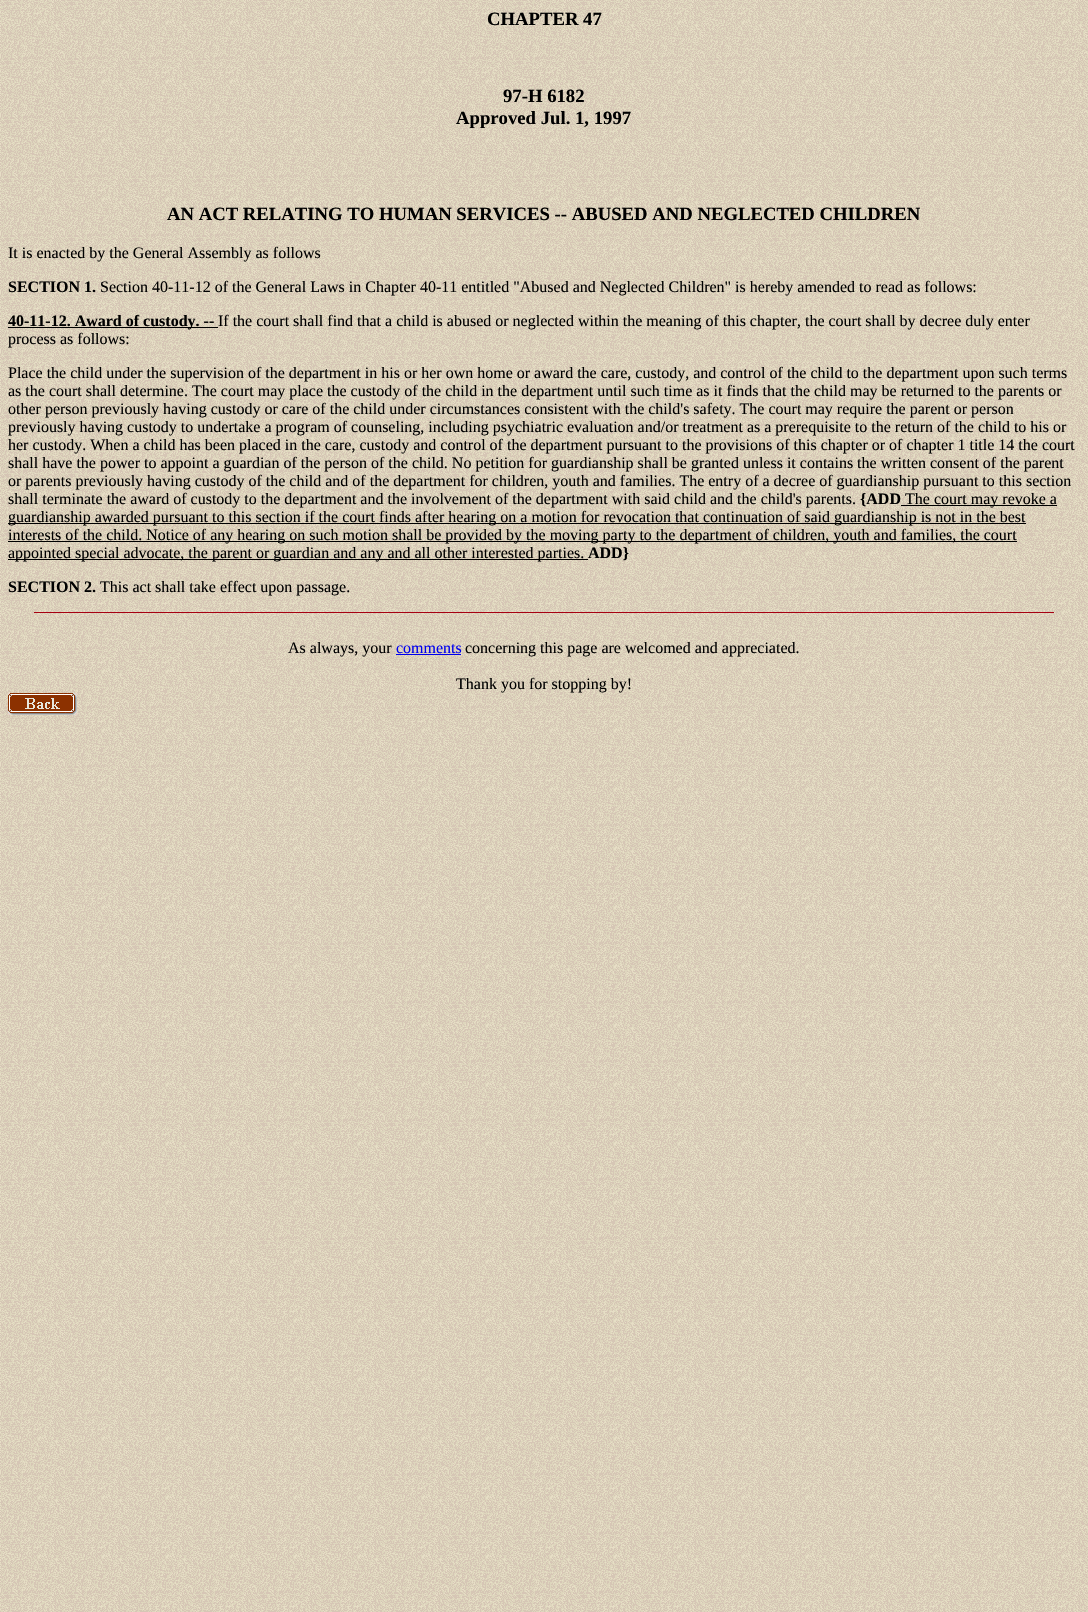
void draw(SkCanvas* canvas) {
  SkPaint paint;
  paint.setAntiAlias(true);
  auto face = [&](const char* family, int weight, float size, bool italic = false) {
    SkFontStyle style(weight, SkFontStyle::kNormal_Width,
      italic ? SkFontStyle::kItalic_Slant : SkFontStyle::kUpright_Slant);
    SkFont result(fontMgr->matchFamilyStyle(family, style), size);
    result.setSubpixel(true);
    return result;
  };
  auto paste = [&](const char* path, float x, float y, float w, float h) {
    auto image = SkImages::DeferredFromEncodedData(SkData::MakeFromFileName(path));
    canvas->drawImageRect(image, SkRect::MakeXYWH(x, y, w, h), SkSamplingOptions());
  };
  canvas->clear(0xffffffff);
  paste("img/1.png", 0, 0, 1088, 1612);
  {
    const struct { float x, y, w, h; SkColor color; } items[] = {
      {8, 327, 210, 1, 0xff000000},
      {901, 505, 156, 1, 0xff000000},
      {8, 523, 1018, 1, 0xff000000},
      {8, 541, 1009, 1, 0xff000000},
      {8, 559, 580, 1, 0xff000000},
      {34, 612, 1020, 1, 0xffa70112},
      {396, 654, 65, 1, 0xff0000ee},
    };
    for (auto [x, y, w, h, color] : items) {
      paint.setColor(color);
      canvas->drawRect(SkRect::MakeXYWH(x, y, w, h), paint);
    }
  }
  paste("img/2.png", 8, 693, 69, 22);
  auto f0 = face("Liberation Serif", 700, 18.7f);
  paint.setColor(0xff000000);
  {
    const struct { const char* s; float x, y; } items[] = {
      {"CHAPTER 47", 487, 25},
      {"97-H 6182", 503, 102},
      {"Approved Jul. 1, 1997", 456, 124},
      {"AN ACT RELATING TO HUMAN SERVICES -- ABUSED AND NEGLECTED CHILDREN", 167, 220},
    };
    for (auto [s, x, y] : items) {
      canvas->drawString(s, x, y, f0, paint);
    }
  }
  auto f1 = face("Liberation Serif", 400, 16);
  canvas->drawString("It is enacted by the General Assembly as follows", 8, 258, f1, paint);
  auto f2 = face("Liberation Serif", 700, 16);
  canvas->drawString("SECTION 1.", 8, 292, f2, paint);
  canvas->drawString("Section 40-11-12 of the General Laws in Chapter 40-11 entitled \"Abused and Neglected Children\" is hereby amended to read as follows:", 100, 292, f1, paint);
  canvas->drawString("40-11-12. Award of custody. --", 8, 326, f2, paint);
  {
    const struct { const char* s; float x, y; } items[] = {
      {"If the court shall find that a child is abused or neglected within the meaning of this chapter, the court shall by decree duly enter", 218, 326},
      {"process as follows:", 8, 344},
      {"Place the child under the supervision of the department in his or her own home or award the care, custody, and control of the child to the department upon such terms", 8, 378},
      {"as the court shall determine. The court may place the custody of the child in the department until such time as it finds that the child may be returned to the parents or", 8, 396},
      {"other person previously having custody or care of the child under circumstances consistent with the child's safety. The court may require the parent or person", 8, 414},
      {"previously having custody to undertake a program of counseling, including psychiatric evaluation and/or treatment as a prerequisite to the return of the child to his or", 8, 432},
      {"her custody. When a child has been placed in the care, custody and control of the department pursuant to the provisions of this chapter or of chapter 1 title 14 the court", 8, 450},
      {"shall have the power to appoint a guardian of the person of the child. No petition for guardianship shall be granted unless it contains the written consent of the parent", 8, 468},
      {"or parents previously having custody of the child and of the department for children, youth and families. The entry of a decree of guardianship pursuant to this section", 8, 486},
      {"shall terminate the award of custody to the department and the involvement of the department with said child and the child's parents.", 8, 504},
    };
    for (auto [s, x, y] : items) {
      canvas->drawString(s, x, y, f1, paint);
    }
  }
  canvas->drawString("{ADD", 860, 504, f2, paint);
  {
    const struct { const char* s; float x, y; } items[] = {
      {"The court may revoke a", 905, 504},
      {"guardianship awarded pursuant to this section if the court finds after hearing on a motion for revocation that continuation of said guardianship is not in the best", 8, 522},
      {"interests of the child. Notice of any hearing on such motion shall be provided by the moving party to the department of children, youth and families, the court", 8, 540},
      {"appointed special advocate, the parent or guardian and any and all other interested parties.", 8, 558},
    };
    for (auto [s, x, y] : items) {
      canvas->drawString(s, x, y, f1, paint);
    }
  }
  canvas->drawString("ADD}", 588, 558, f2, paint);
  canvas->drawString("SECTION 2.", 8, 592, f2, paint);
  canvas->drawString("This act shall take effect upon passage.", 100, 592, f1, paint);
  canvas->drawString("As always, your", 288, 653, f1, paint);
  paint.setColor(0xff0000ee);
  canvas->drawString("comments", 396, 653, f1, paint);
  paint.setColor(0xff000000);
  canvas->drawString("concerning this page are welcomed and appreciated.", 465, 653, f1, paint);
  canvas->drawString("Thank you for stopping by!", 456, 689, f1, paint);
}
